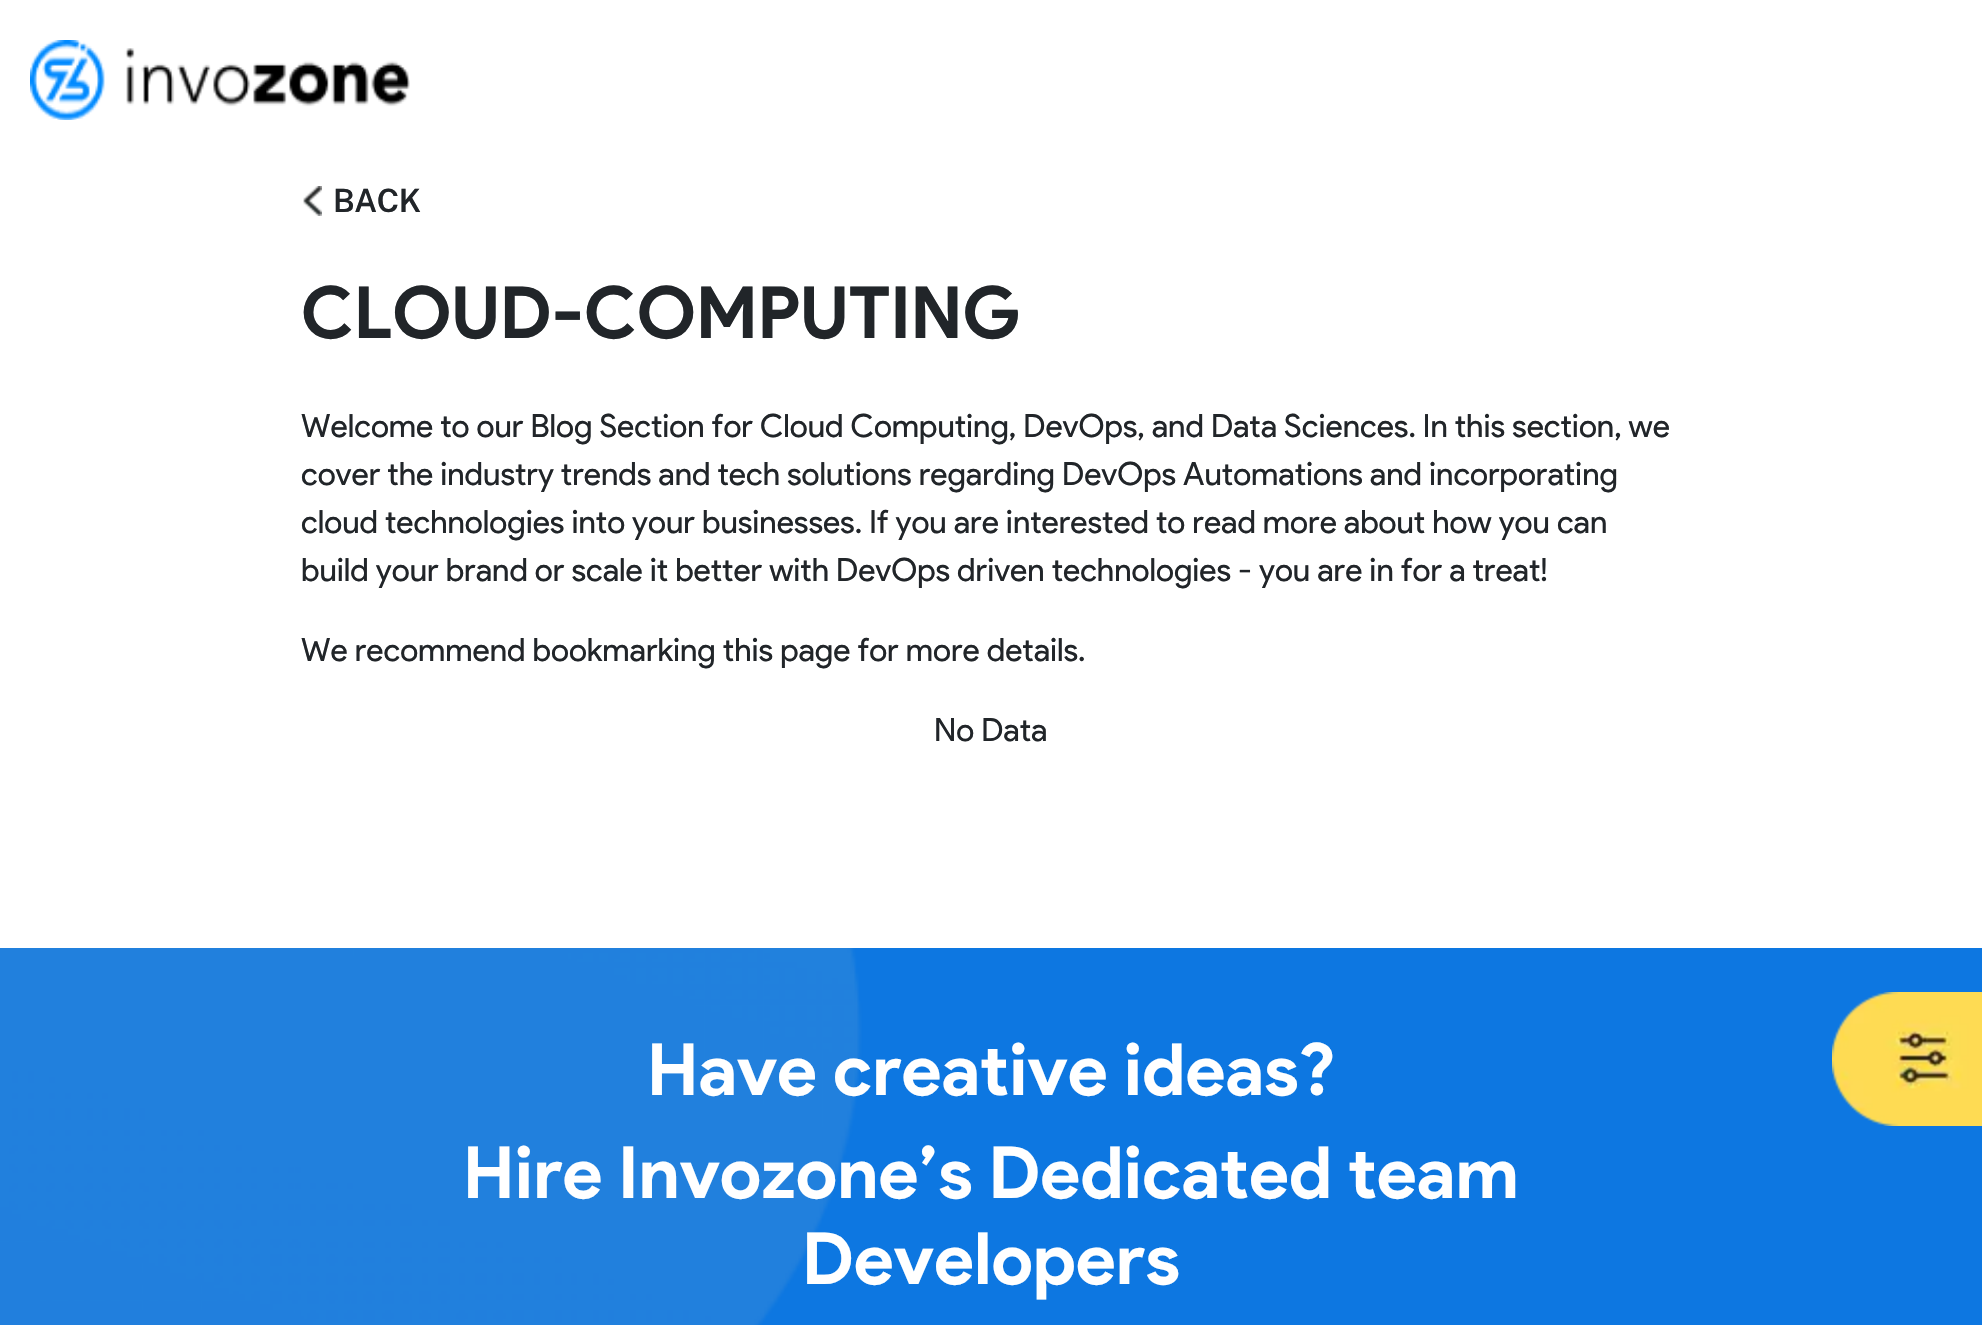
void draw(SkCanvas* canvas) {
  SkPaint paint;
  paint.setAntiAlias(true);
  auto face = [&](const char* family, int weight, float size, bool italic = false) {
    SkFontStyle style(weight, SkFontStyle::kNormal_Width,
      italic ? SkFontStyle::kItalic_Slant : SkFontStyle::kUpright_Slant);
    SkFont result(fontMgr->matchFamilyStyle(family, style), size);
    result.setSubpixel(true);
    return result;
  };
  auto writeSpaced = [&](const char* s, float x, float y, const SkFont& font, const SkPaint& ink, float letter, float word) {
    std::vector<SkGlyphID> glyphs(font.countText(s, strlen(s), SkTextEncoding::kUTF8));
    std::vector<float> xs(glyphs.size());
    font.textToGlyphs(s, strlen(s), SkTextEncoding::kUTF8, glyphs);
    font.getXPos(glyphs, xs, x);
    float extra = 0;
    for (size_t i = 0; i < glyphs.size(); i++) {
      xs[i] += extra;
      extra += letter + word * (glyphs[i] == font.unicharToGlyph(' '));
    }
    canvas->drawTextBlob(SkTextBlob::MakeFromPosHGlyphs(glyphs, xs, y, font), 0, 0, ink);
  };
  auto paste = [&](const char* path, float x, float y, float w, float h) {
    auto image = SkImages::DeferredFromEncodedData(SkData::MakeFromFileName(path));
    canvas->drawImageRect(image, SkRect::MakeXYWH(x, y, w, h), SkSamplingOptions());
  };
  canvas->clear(0xffffffff);
  paste("img/1.png", 30, 40, 380, 80);
  paste("img/2.png", 303, 186, 19, 30);
  paste("img/3.png", 0, 948, 1982, 377);
  paste("img/4.png", 1832, 992, 150, 134);
  auto f0 = face("Public Sans", 600, 32);
  paint.setColor(0xff212529);
  writeSpaced("BACK", 333, 212, f0, paint, -0.5f, 0);
  auto f1 = face("Product Sans", 700, 72);
  canvas->drawString("CLOUD-COMPUTING", 301, 338, f1, paint);
  auto f2 = face("Product Sans", 400, 32);
  {
    const struct { const char* s; float x, y; } items[] = {
      {"Welcome to our Blog Section for Cloud Computing, DevOps, and Data Sciences. In this section, we", 301, 437},
      {"cover the industry trends and tech solutions regarding DevOps Automations and incorporating", 301, 485},
      {"cloud technologies into your businesses. If you are interested to read more about how you can", 301, 533},
      {"build your brand or scale it better with DevOps driven technologies - you are in for a treat!", 301, 581},
      {"We recommend bookmarking this page for more details.", 301, 661},
      {"No Data", 934, 741},
    };
    for (auto [s, x, y] : items) {
      canvas->drawString(s, x, y, f2, paint);
    }
  }
  paint.setColor(0xffffffff);
  {
    const struct { const char* s; float x, y; } items[] = {
      {"Have creative ideas?", 647, 1095},
      {"Hire Invozone’s Dedicated team", 463, 1198},
      {"Developers", 802, 1284},
    };
    for (auto [s, x, y] : items) {
      canvas->drawString(s, x, y, f1, paint);
    }
  }
}
